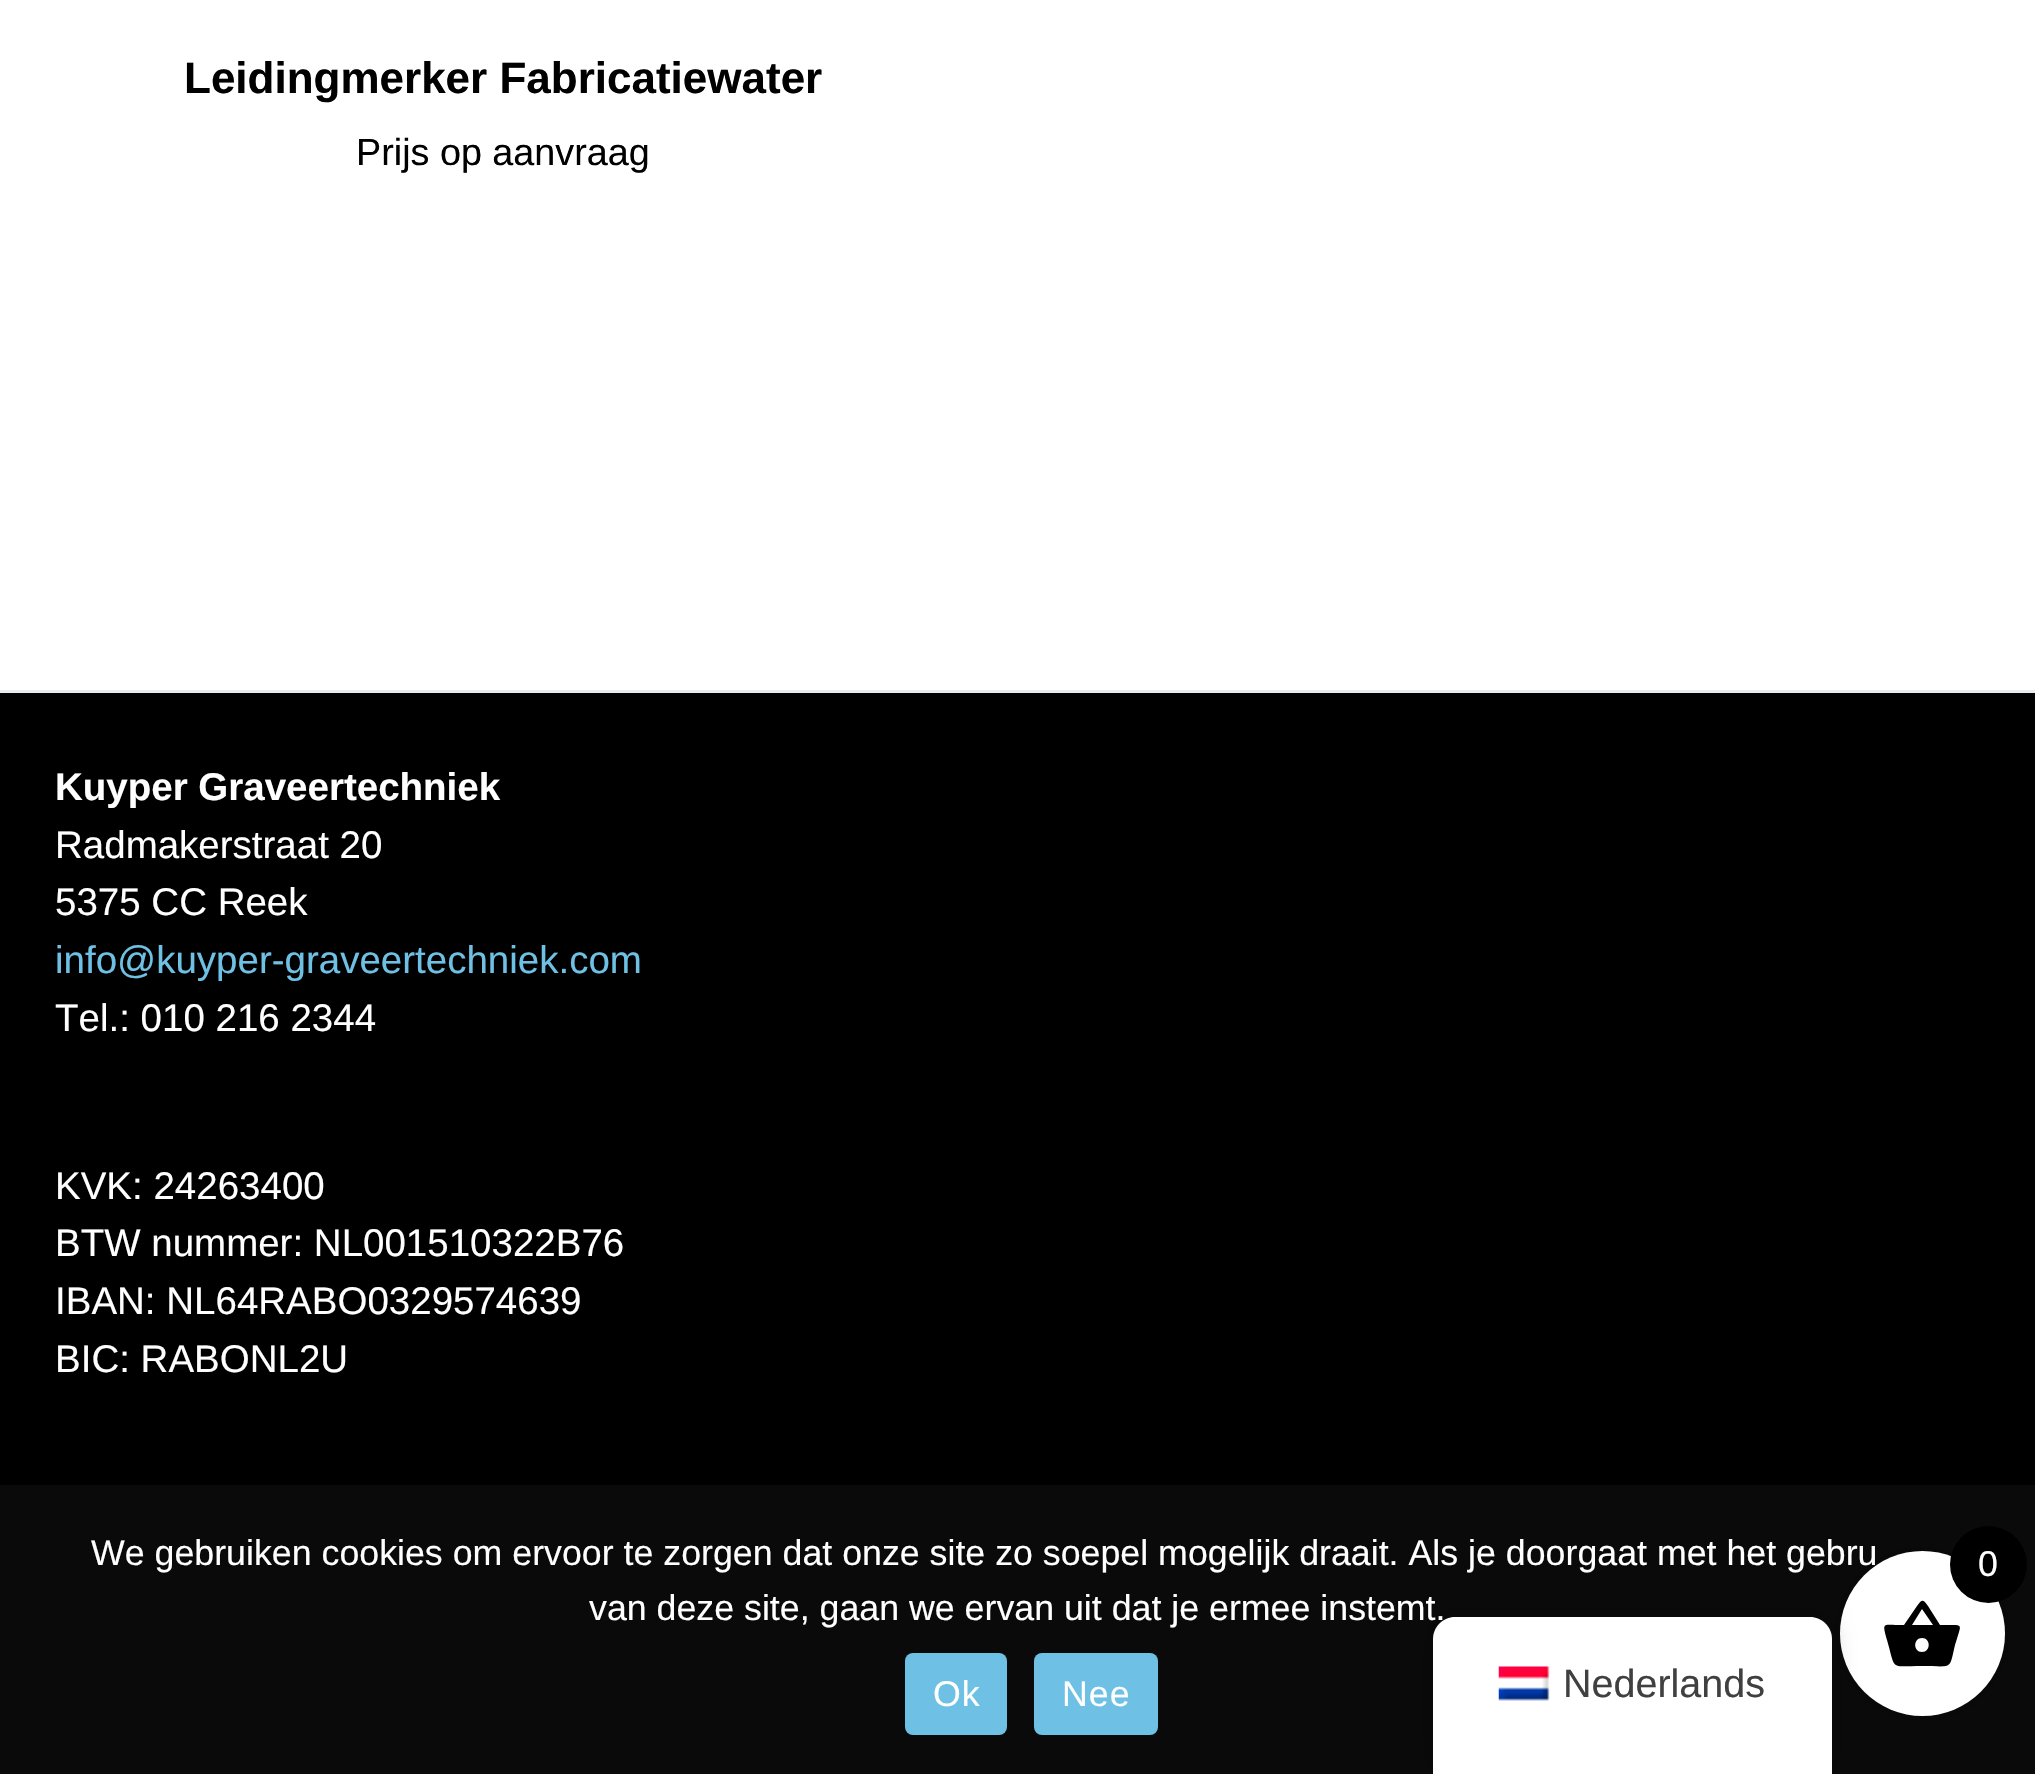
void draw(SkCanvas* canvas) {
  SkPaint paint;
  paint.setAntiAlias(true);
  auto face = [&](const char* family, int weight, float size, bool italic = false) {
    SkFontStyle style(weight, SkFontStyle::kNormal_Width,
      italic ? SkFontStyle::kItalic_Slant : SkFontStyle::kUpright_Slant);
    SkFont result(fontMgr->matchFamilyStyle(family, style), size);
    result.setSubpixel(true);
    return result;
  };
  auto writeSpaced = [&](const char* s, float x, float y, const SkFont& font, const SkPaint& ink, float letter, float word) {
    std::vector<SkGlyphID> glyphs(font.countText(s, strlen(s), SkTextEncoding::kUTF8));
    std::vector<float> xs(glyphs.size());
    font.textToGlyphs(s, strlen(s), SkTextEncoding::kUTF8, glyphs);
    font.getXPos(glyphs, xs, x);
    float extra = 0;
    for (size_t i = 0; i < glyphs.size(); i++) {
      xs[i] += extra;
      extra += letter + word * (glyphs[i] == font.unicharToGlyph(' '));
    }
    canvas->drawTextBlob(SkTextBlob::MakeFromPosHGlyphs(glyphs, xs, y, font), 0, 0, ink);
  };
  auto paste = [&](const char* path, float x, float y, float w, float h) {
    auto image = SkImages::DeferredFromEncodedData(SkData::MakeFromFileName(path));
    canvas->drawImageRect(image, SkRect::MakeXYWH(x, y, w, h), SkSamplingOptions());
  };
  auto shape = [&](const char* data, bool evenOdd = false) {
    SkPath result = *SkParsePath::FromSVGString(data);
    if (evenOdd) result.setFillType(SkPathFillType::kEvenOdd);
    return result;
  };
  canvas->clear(0xffffffff);
  {
    const struct { float x, y, w, h; SkColor color; } items[] = {
      {0, 693, 2035, 792, 0xff000000},
      {0, 690, 2035, 3, 0xffe9ecef},
      {0, 1485, 2035, 289, 0xff0a0a0a},
    };
    for (auto [x, y, w, h, color] : items) {
      paint.setColor(color);
      canvas->drawRect(SkRect::MakeXYWH(x, y, w, h), paint);
    }
  }
  paint.setColor(0xff6ec1e4);
  canvas->drawRoundRect(SkRect::MakeXYWH(905, 1653, 102, 82), 8, 8, paint);
  canvas->drawRoundRect(SkRect::MakeXYWH(1034, 1653, 124, 82), 8, 8, paint);
  paint.setColor(0x1a000000);
  paint.setMaskFilter(SkMaskFilter::MakeBlur(kNormal_SkBlurStyle, 20.5f));
  canvas->drawRoundRect(SkRect::MakeXYWH(1834, 1546, 176, 176), 88, 88, paint);
  paint.setMaskFilter(nullptr);
  paint.setColor(0xffffffff);
  canvas->drawCircle(1922.5f, 1633.5f, 82.5f, paint);
  paint.setColor(0xff000000);
  canvas->drawPath(shape("M1922 1652C1931 1652 1931 1638 1922 1638C1913 1638 1913 1652 1922 1652ZM1912 1625H1933L1922 1609ZM1940 1625H1954C1960 1625 1961 1626 1959 1632L1955 1645C1949 1671 1953 1666 1922 1666C1889 1666 1896 1671 1887 1640C1882 1621 1882 1625 1904 1625L1917 1606C1922 1599 1923 1599 1928 1606Z"), paint);
  canvas->drawCircle(1988.5f, 1564.5f, 38.5f, paint);
  paint.setColor(0x40000000);
  paint.setMaskFilter(SkMaskFilter::MakeBlur(kNormal_SkBlurStyle, 11));
  canvas->drawRoundRect(SkRect::MakeXYWH(1433, 1617, 399, 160), 22, 22, paint);
  paint.setMaskFilter(nullptr);
  paint.setColor(0xffffffff);
  canvas->drawPath(shape("M1455 1617H1810C1822 1617 1832 1627 1832 1639V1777H1433V1639C1433 1627 1443 1617 1455 1617Z"), paint);
  paste("img/1.png", 1498, 1666, 52, 35);
  auto f0 = face("Liberation Sans", 700, 44);
  paint.setColor(0xff000000);
  canvas->drawString("Leidingmerker Fabricatiewater", 184, 93, f0, paint);
  auto f1 = face("Liberation Sans", 400, 37.75f);
  canvas->drawString("Prijs op aanvraag", 356, 165, f1, paint);
  auto f2 = face("Liberation Sans", 700, 38.5f);
  paint.setColor(0xffffffff);
  canvas->drawString("Kuyper Graveertechniek", 55, 800, f2, paint);
  auto f3 = face("Liberation Sans", 400, 38.5f);
  canvas->drawString("Radmakerstraat 20", 55, 858, f3, paint);
  canvas->drawString("5375 CC Reek", 55, 915, f3, paint);
  paint.setColor(0xff6ec1e4);
  canvas->drawString("info@kuyper-graveertechniek.com", 55, 973, f3, paint);
  paint.setColor(0xffffffff);
  {
    const struct { const char* s; float x, y; } items[] = {
      {"Tel.: 010 216 2344", 55, 1031},
      {"KVK: 24263400", 55, 1199},
      {"BTW nummer: NL001510322B76", 55, 1256},
      {"IBAN: NL64RABO0329574639", 55, 1314},
      {"BIC: RABONL2U", 55, 1372},
    };
    for (auto [s, x, y] : items) {
      canvas->drawString(s, x, y, f3, paint);
    }
  }
  auto f4 = face("Liberation Sans", 400, 35.75f);
  canvas->drawString("We gebruiken cookies om ervoor te zorgen dat onze site zo soepel mogelijk draait. Als je doorgaat met het gebru", 91, 1565, f4, paint);
  canvas->drawString("van deze site, gaan we ervan uit dat je ermee instemt.", 589, 1620, f4, paint);
  writeSpaced("Ok", 933, 1706, f4, paint, 1, 0);
  writeSpaced("Nee", 1062, 1706, f4, paint, 1, 0);
  canvas->drawString("0", 1978, 1576, f4, paint);
  auto f5 = face("Liberation Sans", 400, 39.5f);
  paint.setColor(0xff404040);
  canvas->drawString("Nederlands", 1563, 1697, f5, paint);
}
